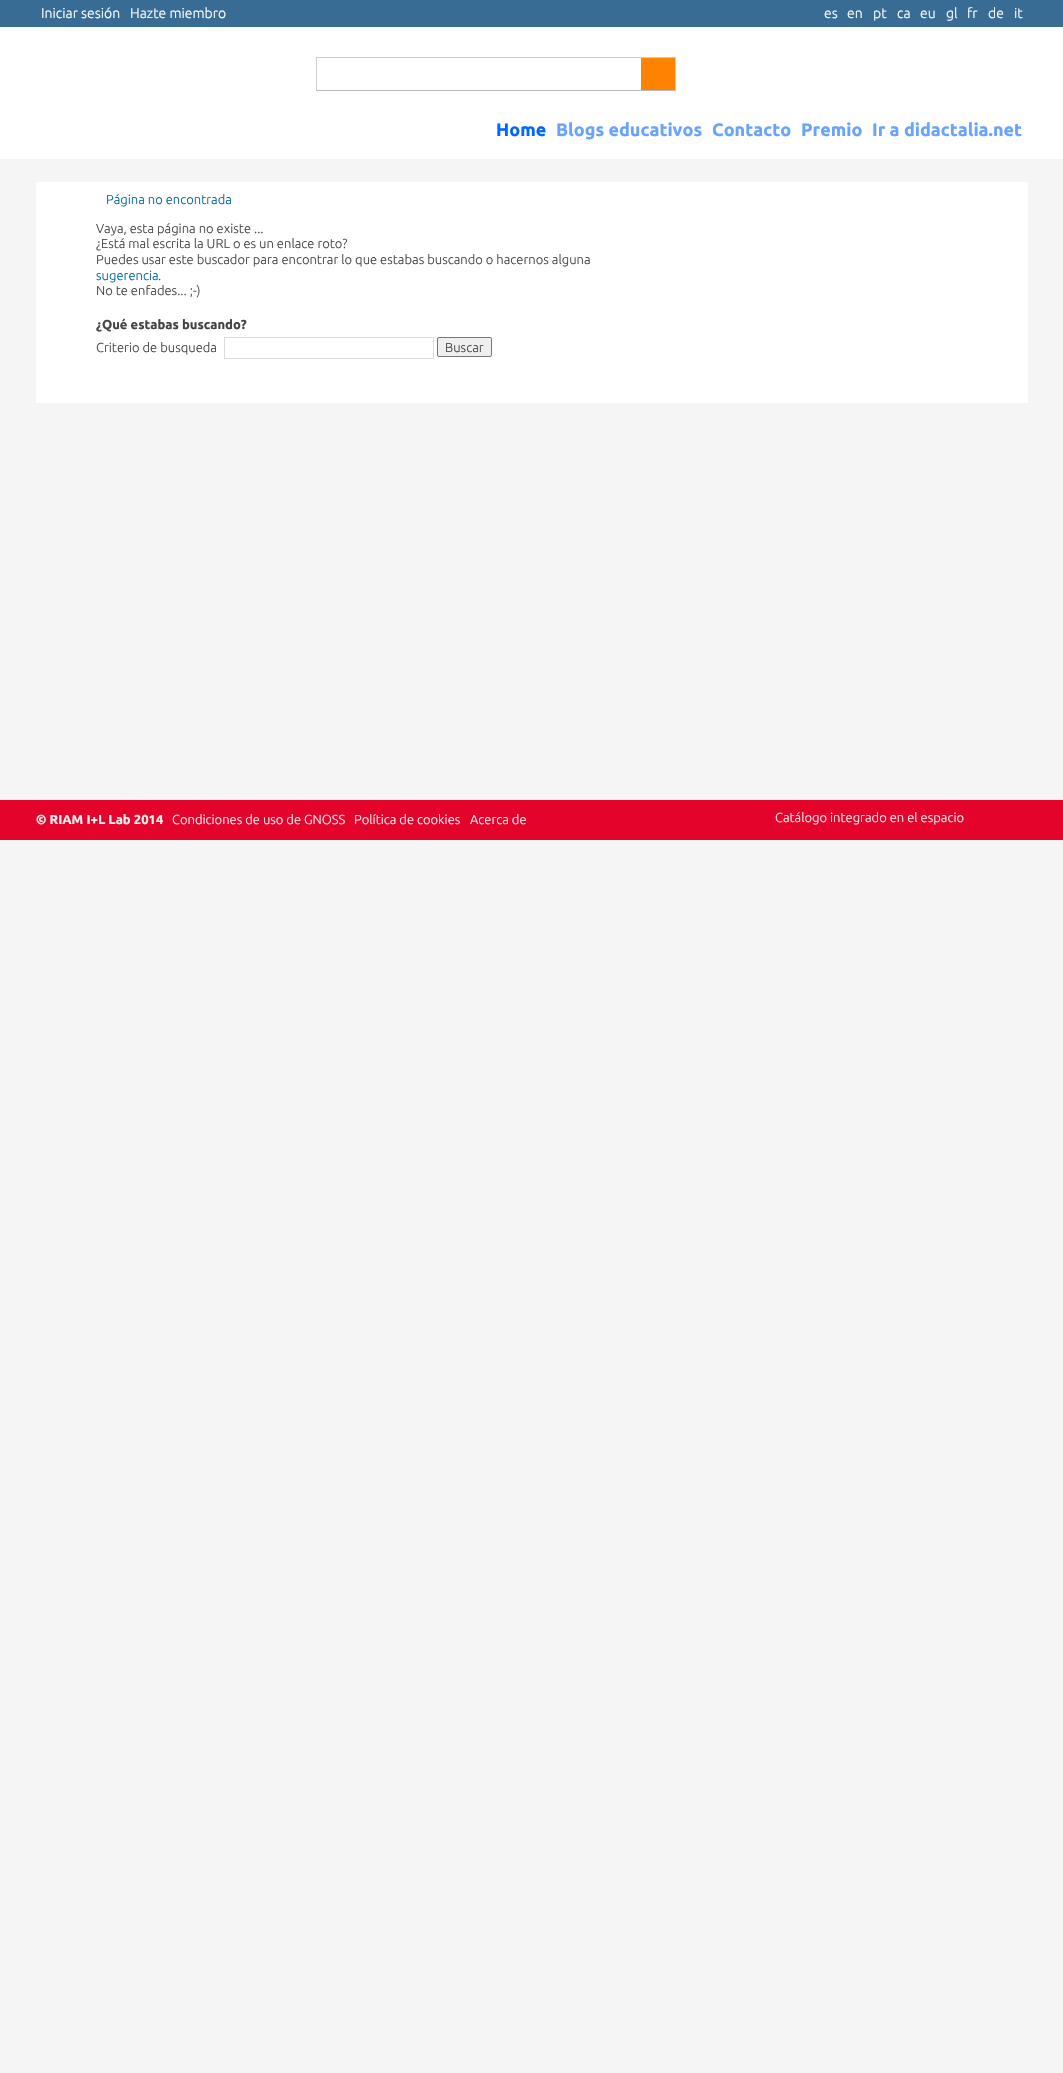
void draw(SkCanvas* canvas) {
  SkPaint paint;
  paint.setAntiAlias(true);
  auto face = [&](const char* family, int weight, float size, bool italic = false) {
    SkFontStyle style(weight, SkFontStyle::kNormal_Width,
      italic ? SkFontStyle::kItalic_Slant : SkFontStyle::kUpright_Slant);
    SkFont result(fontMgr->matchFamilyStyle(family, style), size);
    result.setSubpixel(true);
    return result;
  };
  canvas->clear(0xfff5f5f5);
  {
    const struct { float x, y, w, h; SkColor color; } items[] = {
      {0, 0, 1063, 27, 0xff386c94},
      {0, 27, 1063, 132, 0xffffffff},
      {316, 57, 360, 1, 0xffcccccc},
      {675, 57, 1, 34, 0xffcccccc},
      {316, 90, 360, 1, 0xffbbbbbb},
      {316, 57, 1, 34, 0xffcccccc},
      {641, 58, 34, 32, 0xffff8300},
      {36, 182, 992, 221, 0xffffffff},
    };
    for (auto [x, y, w, h, color] : items) {
      paint.setColor(color);
      canvas->drawRect(SkRect::MakeXYWH(x, y, w, h), paint);
    }
  }
  paint.setStroke(true);
  paint.setStrokeWidth(1);
  paint.setColor(0xffdddddd);
  canvas->drawRect(SkRect::MakeXYWH(224.5f, 337.5f, 209, 21), paint);
  paint.setStroke(false);
  paint.setColor(0xffefefef);
  canvas->drawRoundRect(SkRect::MakeXYWH(437.5f, 337.5f, 54, 19), 1.5f, 1.5f, paint);
  paint.setStroke(true);
  paint.setColor(0xff767676);
  canvas->drawRoundRect(SkRect::MakeXYWH(437.5f, 337.5f, 54, 19), 1.5f, 1.5f, paint);
  paint.setStroke(false);
  paint.setColor(0xffe4042b);
  canvas->drawRect(SkRect::MakeXYWH(0, 800, 1063, 40), paint);
  auto f0 = face("Ubuntu", 300, 14);
  paint.setColor(0xffffffff);
  {
    const struct { const char* s; float x, y; } items[] = {
      {"Iniciar sesión", 41, 18},
      {"Hazte miembro", 130, 18},
      {"es", 824, 18},
      {"en", 847, 18},
      {"pt", 873, 18},
      {"ca", 897, 18},
      {"eu", 920, 18},
      {"gl", 946, 18},
      {"fr", 967, 18},
      {"de", 988, 18},
      {"it", 1014, 18},
    };
    for (auto [s, x, y] : items) {
      canvas->drawString(s, x, y, f0, paint);
    }
  }
  auto f1 = face("Ubuntu", 700, 18);
  paint.setColor(0xff0166ff);
  canvas->drawString("Home", 496, 136, f1, paint);
  paint.setColor(0xff67a3ff);
  {
    const struct { const char* s; float x, y; } items[] = {
      {"Blogs educativos", 556, 136},
      {"Contacto", 712, 136},
      {"Premio", 801, 136},
      {"Ir a didactalia.net", 872, 136},
    };
    for (auto [s, x, y] : items) {
      canvas->drawString(s, x, y, f1, paint);
    }
  }
  auto f2 = face("Ubuntu", 300, 13);
  paint.setColor(0xff006699);
  canvas->drawString("Página no encontrada", 106, 204, f2, paint);
  paint.setColor(0xff444444);
  {
    const struct { const char* s; float x, y; } items[] = {
      {"Vaya, esta página no existe ...", 96, 233},
      {"¿Está mal escrita la URL o es un enlace roto?", 96, 248},
      {"Puedes usar este buscador para encontrar lo que estabas buscando o hacernos alguna", 96, 264},
    };
    for (auto [s, x, y] : items) {
      canvas->drawString(s, x, y, f2, paint);
    }
  }
  paint.setColor(0xff006699);
  canvas->drawString("sugerencia", 96, 280, f2, paint);
  paint.setColor(0xff444444);
  canvas->drawString(".", 158, 280, f2, paint);
  canvas->drawString("No te enfades... ;-)", 96, 295, f2, paint);
  auto f3 = face("Ubuntu", 700, 13);
  canvas->drawString("¿Qué estabas buscando?", 96, 329, f3, paint);
  canvas->drawString("Criterio de busqueda", 96, 352, f2, paint);
  canvas->drawString("Buscar", 445, 352, f2, paint);
  paint.setColor(0xffeeeeee);
  canvas->drawString("© RIAM I+L Lab 2014", 36, 824, f3, paint);
  {
    const struct { const char* s; float x, y; } items[] = {
      {"Condiciones de uso de GNOSS", 172, 824},
      {"Política de cookies", 354, 824},
      {"Acerca de", 470, 824},
      {"Catálogo integrado en el espacio", 775, 822},
    };
    for (auto [s, x, y] : items) {
      canvas->drawString(s, x, y, f2, paint);
    }
  }
}
